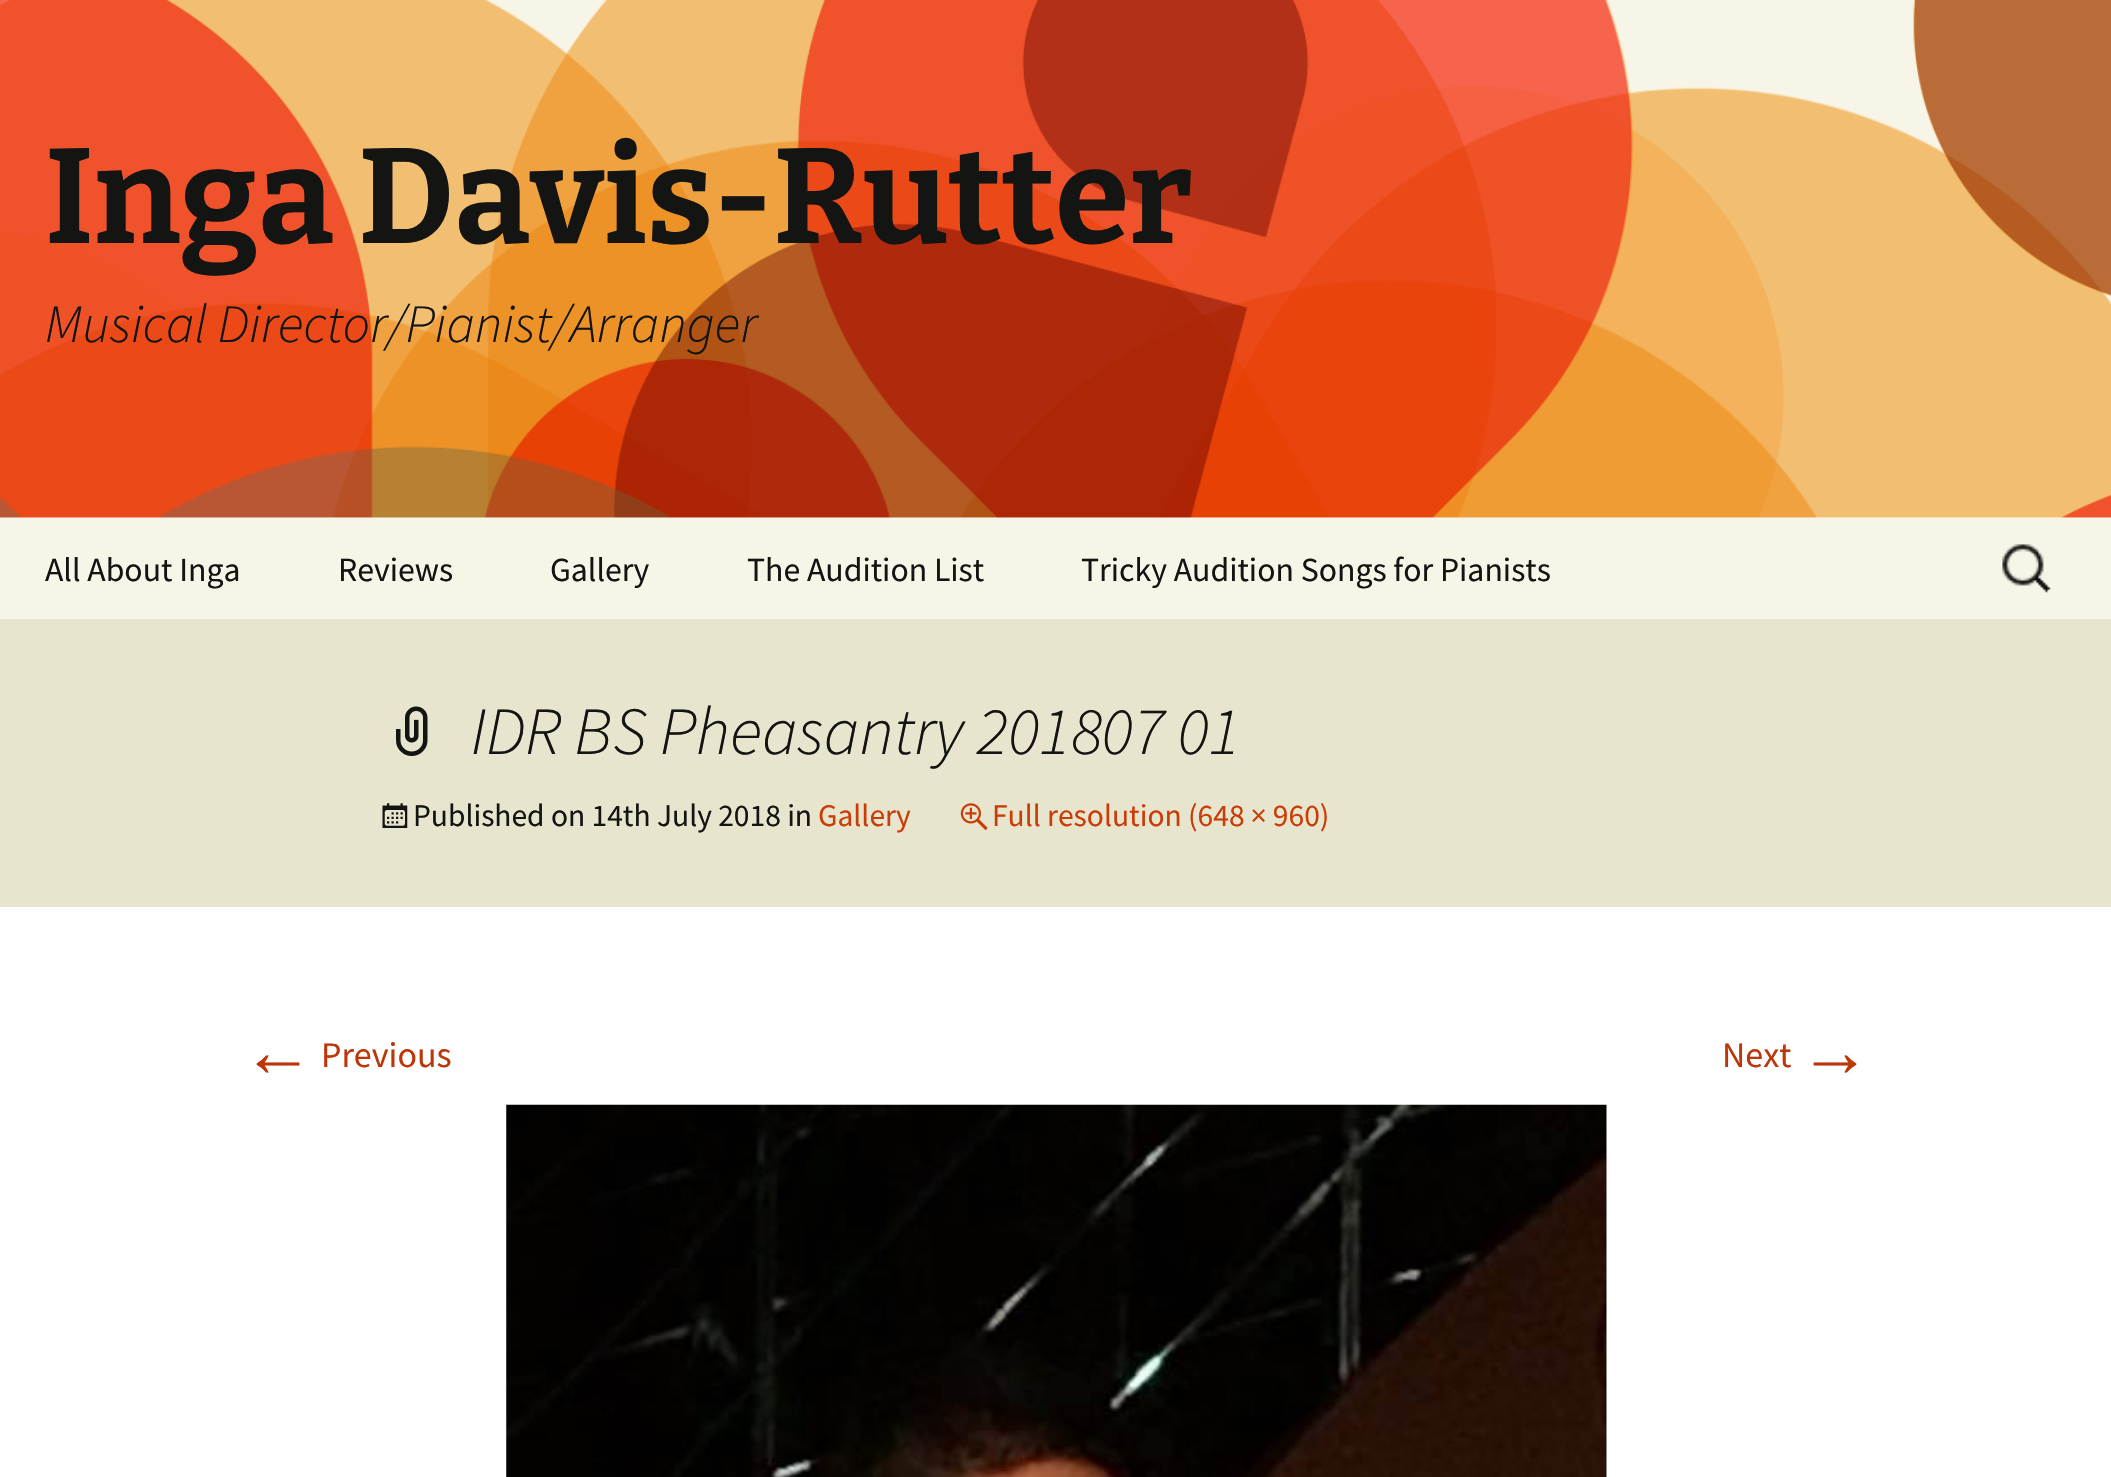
void draw(SkCanvas* canvas) {
  SkPaint paint;
  paint.setAntiAlias(true);
  auto face = [&](const char* family, int weight, float size, bool italic = false) {
    SkFontStyle style(weight, SkFontStyle::kNormal_Width,
      italic ? SkFontStyle::kItalic_Slant : SkFontStyle::kUpright_Slant);
    SkFont result(fontMgr->matchFamilyStyle(family, style), size);
    result.setSubpixel(true);
    return result;
  };
  auto paste = [&](const char* path, float x, float y, float w, float h) {
    auto image = SkImages::DeferredFromEncodedData(SkData::MakeFromFileName(path));
    canvas->drawImageRect(image, SkRect::MakeXYWH(x, y, w, h), SkSamplingOptions());
  };
  canvas->clear(0xffffffff);
  paste("img/1.png", 0, 0, 2111, 518);
  paint.setColor(0xfff7f5e7);
  canvas->drawRect(SkRect::MakeXYWH(0, 518, 2111, 101), paint);
  paste("img/2.png", 2002, 544, 49, 49);
  paint.setColor(0xffe8e5ce);
  canvas->drawRect(SkRect::MakeXYWH(0, 619, 2111, 288), paint);
  paste("img/3.png", 396, 706, 32, 50);
  paste("img/4.png", 382, 803, 26, 25);
  paste("img/5.png", 960, 803, 28, 28);
  paste("img/6.png", 506, 1104, 1101, 373);
  auto f0 = face("Bitter", 100, 135);
  paint.setColor(0xff141412);
  canvas->drawString("Inga Davis-Rutter", 45, 243, f0, paint);
  auto f1 = face("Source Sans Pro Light", 300, 54, true);
  canvas->drawString("Musical Director/Pianist/Arranger", 45, 342, f1, paint);
  auto f2 = face("Source Sans Pro", 400, 33.75f);
  {
    const struct { const char* s; float x, y; } items[] = {
      {"All About Inga", 45, 581},
      {"Reviews", 338, 581},
      {"Gallery", 550, 581},
      {"The Audition List", 747, 581},
      {"Tricky Audition Songs for Pianists", 1081, 581},
    };
    for (auto [s, x, y] : items) {
      canvas->drawString(s, x, y, f2, paint);
    }
  }
  auto f3 = face("Source Sans Pro Light", 300, 67.5f, true);
  canvas->drawString("IDR BS Pheasantry 201807 01", 471, 754, f3, paint);
  auto f4 = face("Source Sans Pro", 400, 31.5f);
  canvas->drawString("Published on 14th July 2018 in", 413, 826, f4, paint);
  paint.setColor(0xffca3c08);
  canvas->drawString("Gallery", 818, 826, f4, paint);
  canvas->drawString("Full resolution (648 × 960)", 992, 826, f4, paint);
  auto f5 = face("Liberation Sans", 400, 72);
  paint.setColor(0xffbc360a);
  canvas->drawString("←", 242, 1076, f5, paint);
  auto f6 = face("Source Sans Pro", 400, 36);
  canvas->drawString("Previous", 321, 1067, f6, paint);
  canvas->drawString("Next", 1722, 1067, f6, paint);
  canvas->drawString("→", 1799, 1076, f5, paint);
}
